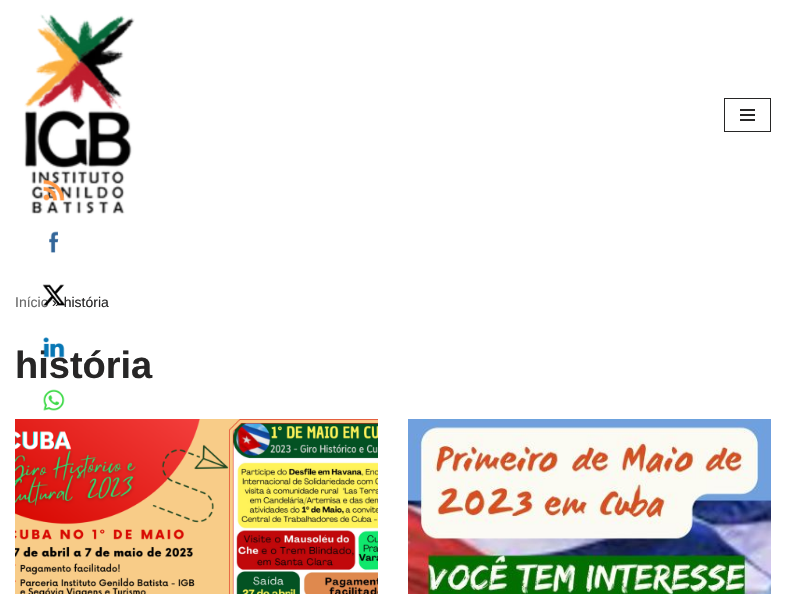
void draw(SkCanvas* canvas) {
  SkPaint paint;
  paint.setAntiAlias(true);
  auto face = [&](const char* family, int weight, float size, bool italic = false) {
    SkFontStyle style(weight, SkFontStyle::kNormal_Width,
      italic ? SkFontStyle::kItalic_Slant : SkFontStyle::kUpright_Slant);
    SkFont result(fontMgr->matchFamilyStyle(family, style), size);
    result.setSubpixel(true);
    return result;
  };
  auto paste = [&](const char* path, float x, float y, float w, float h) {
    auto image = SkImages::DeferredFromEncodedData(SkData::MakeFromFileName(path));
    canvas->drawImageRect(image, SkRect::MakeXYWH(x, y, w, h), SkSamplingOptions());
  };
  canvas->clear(0xffffffff);
  paste("img/6.png", 24, 14, 111, 201);
  paste("img/1.png", 43, 179, 22, 22);
  paste("img/2.png", 49, 231, 10, 22);
  paste("img/5.png", 43, 389, 22, 22);
  paint.setStroke(true);
  paint.setStrokeWidth(1);
  paint.setColor(0xff272626);
  canvas->drawRect(SkRect::MakeXYWH(724.5f, 98.5f, 46, 33), paint);
  paint.setStroke(false);
  {
    const struct { float x, y, w, h; SkColor color; } items[] = {
      {740, 109, 15, 2, 0xff272626},
      {740, 114, 15, 2, 0xff272626},
      {740, 119, 15, 2, 0xff272626},
    };
    for (auto [x, y, w, h, color] : items) {
      paint.setColor(color);
      canvas->drawRect(SkRect::MakeXYWH(x, y, w, h), paint);
    }
  }
  paste("img/7.png", 15, 419, 363, 175);
  paste("img/8.png", 408, 419, 363, 175);
  auto f0 = face("Liberation Sans", 400, 14);
  paint.setColor(0xff676767);
  canvas->drawString("Início", 15, 307, f0, paint);
  paint.setColor(0xff272626);
  canvas->drawString("» história", 52, 307, f0, paint);
  paste("img/3.png", 42, 284, 23, 22);
  auto f1 = face("Liberation Sans", 700, 38);
  canvas->drawString("história", 15, 378, f1, paint);
  paste("img/4.png", 43, 337, 22, 21);
}
